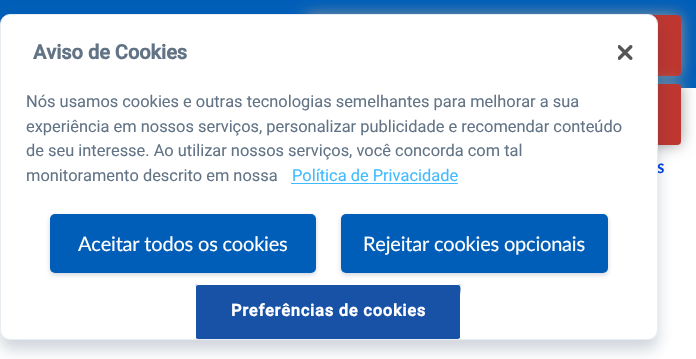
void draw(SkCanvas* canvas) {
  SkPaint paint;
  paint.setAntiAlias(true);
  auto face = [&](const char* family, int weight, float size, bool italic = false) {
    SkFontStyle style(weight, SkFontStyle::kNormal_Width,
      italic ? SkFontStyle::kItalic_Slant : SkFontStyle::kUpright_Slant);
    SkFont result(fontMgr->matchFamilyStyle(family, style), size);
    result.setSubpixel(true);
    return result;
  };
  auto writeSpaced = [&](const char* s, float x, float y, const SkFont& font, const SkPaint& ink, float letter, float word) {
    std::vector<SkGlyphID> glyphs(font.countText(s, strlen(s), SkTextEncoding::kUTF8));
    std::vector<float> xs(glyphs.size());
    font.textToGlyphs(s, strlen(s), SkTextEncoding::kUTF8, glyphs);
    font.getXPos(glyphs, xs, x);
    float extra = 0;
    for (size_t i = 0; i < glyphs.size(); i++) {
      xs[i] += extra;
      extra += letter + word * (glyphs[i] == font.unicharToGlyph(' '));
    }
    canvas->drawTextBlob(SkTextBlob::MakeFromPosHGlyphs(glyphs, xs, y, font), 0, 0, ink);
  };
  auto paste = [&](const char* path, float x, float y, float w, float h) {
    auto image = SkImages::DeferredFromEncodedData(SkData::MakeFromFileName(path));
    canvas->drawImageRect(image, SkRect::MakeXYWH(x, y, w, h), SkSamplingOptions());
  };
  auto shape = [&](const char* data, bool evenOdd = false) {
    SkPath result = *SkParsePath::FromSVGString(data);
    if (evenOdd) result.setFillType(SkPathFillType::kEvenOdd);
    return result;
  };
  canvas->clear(0xffffffff);
  paint.setColor(0xff005eb8);
  canvas->drawRect(SkRect::MakeXYWH(0, 0, 696, 88), paint);
  paint.setColor(0xff999999);
  paint.setMaskFilter(SkMaskFilter::MakeBlur(kNormal_SkBlurStyle, 7.5f));
  canvas->drawRoundRect(SkRect::MakeXYWH(306, 15, 375, 61), 4, 4, paint);
  paint.setMaskFilter(nullptr);
  paint.setColor(0xffbd362f);
  canvas->drawRoundRect(SkRect::MakeXYWH(306, 15, 375, 61), 4, 4, paint);
  paint.setColor(0xff999999);
  paint.setMaskFilter(SkMaskFilter::MakeBlur(kNormal_SkBlurStyle, 7.5f));
  canvas->drawRoundRect(SkRect::MakeXYWH(306, 84, 375, 61), 4, 4, paint);
  paint.setMaskFilter(nullptr);
  paint.setColor(0xffbd362f);
  canvas->drawRoundRect(SkRect::MakeXYWH(306, 84, 375, 61), 4, 4, paint);
  paint.setColor(0x33142e52);
  paint.setMaskFilter(SkMaskFilter::MakeBlur(kNormal_SkBlurStyle, 7.5f));
  canvas->drawRoundRect(SkRect::MakeXYWH(0, 24, 658, 326), 10, 10, paint);
  paint.setMaskFilter(nullptr);
  auto f0 = face("Alegreya Sans", 500, 20);
  paint.setColor(0xff0041d9);
  canvas->drawString("s", 657, 173, f0, paint);
  paint.setColor(0xffffffff);
  canvas->drawRoundRect(SkRect::MakeXYWH(0.5f, 14.5f, 657, 325), 9.5f, 9.5f, paint);
  paint.setStroke(true);
  paint.setStrokeWidth(1);
  paint.setColor(0xffe8edf1);
  canvas->drawRoundRect(SkRect::MakeXYWH(0.5f, 14.5f, 657, 325), 9.5f, 9.5f, paint);
  paste("img/1.png", 618, 45, 15, 15);
  canvas->save();
  canvas->clipPath(shape("M10 15H647C652 15 656 19 656 24V330C656 335 652 339 647 339H10C5 339 1 335 1 330V24C1 19 5 15 10 15Z"), true);
  paint.setStroke(false);
  paint.setColor(0xff1752a6);
  canvas->drawRoundRect(SkRect::MakeXYWH(195, 284, 266, 56), 2.5f, 2.5f, paint);
  canvas->restore();
  paint.setColor(0xffffffff);
  canvas->drawPath(shape("M198 284C196 284 195 285 195 286V338V339H198C197 339 196 338 196 338V286L198 285H458C462 285 460 292 460 295V338L458 339H461V338V286C461 285 460 284 458 284Z"), paint);
  auto f1 = face("Roboto", 700, 16.4f);
  writeSpaced("Preferências de cookies", 231, 316, f1, paint, 0.8f, 0);
  paint.setColor(0x33142e52);
  paint.setMaskFilter(SkMaskFilter::MakeBlur(kNormal_SkBlurStyle, 2.5f));
  canvas->drawRoundRect(SkRect::MakeXYWH(341, 216, 267, 59), 5, 5, paint);
  paint.setMaskFilter(nullptr);
  paint.setColor(0xff005eb8);
  canvas->drawRoundRect(SkRect::MakeXYWH(341, 214, 267, 59), 5, 5, paint);
  auto f2 = face("Lato", 400, 20);
  paint.setColor(0xffffffff);
  writeSpaced("Rejeitar cookies opcionais", 363, 251, f2, paint, -0.2f, 0);
  paint.setColor(0x33142e52);
  paint.setMaskFilter(SkMaskFilter::MakeBlur(kNormal_SkBlurStyle, 2.5f));
  canvas->drawRoundRect(SkRect::MakeXYWH(50, 216, 266, 59), 5, 5, paint);
  paint.setMaskFilter(nullptr);
  paint.setColor(0xff005eb8);
  canvas->drawRoundRect(SkRect::MakeXYWH(50, 214, 266, 59), 5, 5, paint);
  paint.setColor(0xffffffff);
  writeSpaced("Aceitar todos os cookies", 78, 251, f2, paint, -0.2f, 0);
  auto f3 = face("Roboto", 400, 16.4f);
  paint.setColor(0xff40bbff);
  canvas->drawString("Política de Privacidade", 292, 181, f3, paint);
  canvas->drawRect(SkRect::MakeXYWH(291, 183, 167, 1), paint);
  paint.setColor(0xff617385);
  {
    const struct { const char* s; float x, y; } items[] = {
      {"monitoramento descrito em nossa", 26, 181},
      {"de seu interesse. Ao utilizar nossos serviços, você concorda com tal", 26, 156},
      {"experiência em nossos serviços, personalizar publicidade e recomendar conteúdo", 26, 132},
      {"Nós usamos cookies e outras tecnologias semelhantes para melhorar a sua", 26, 107},
    };
    for (auto [s, x, y] : items) {
      canvas->drawString(s, x, y, f3, paint);
    }
  }
  auto f4 = face("Roboto", 700, 20);
  canvas->drawString("Aviso de Cookies", 33, 59, f4, paint);
}
